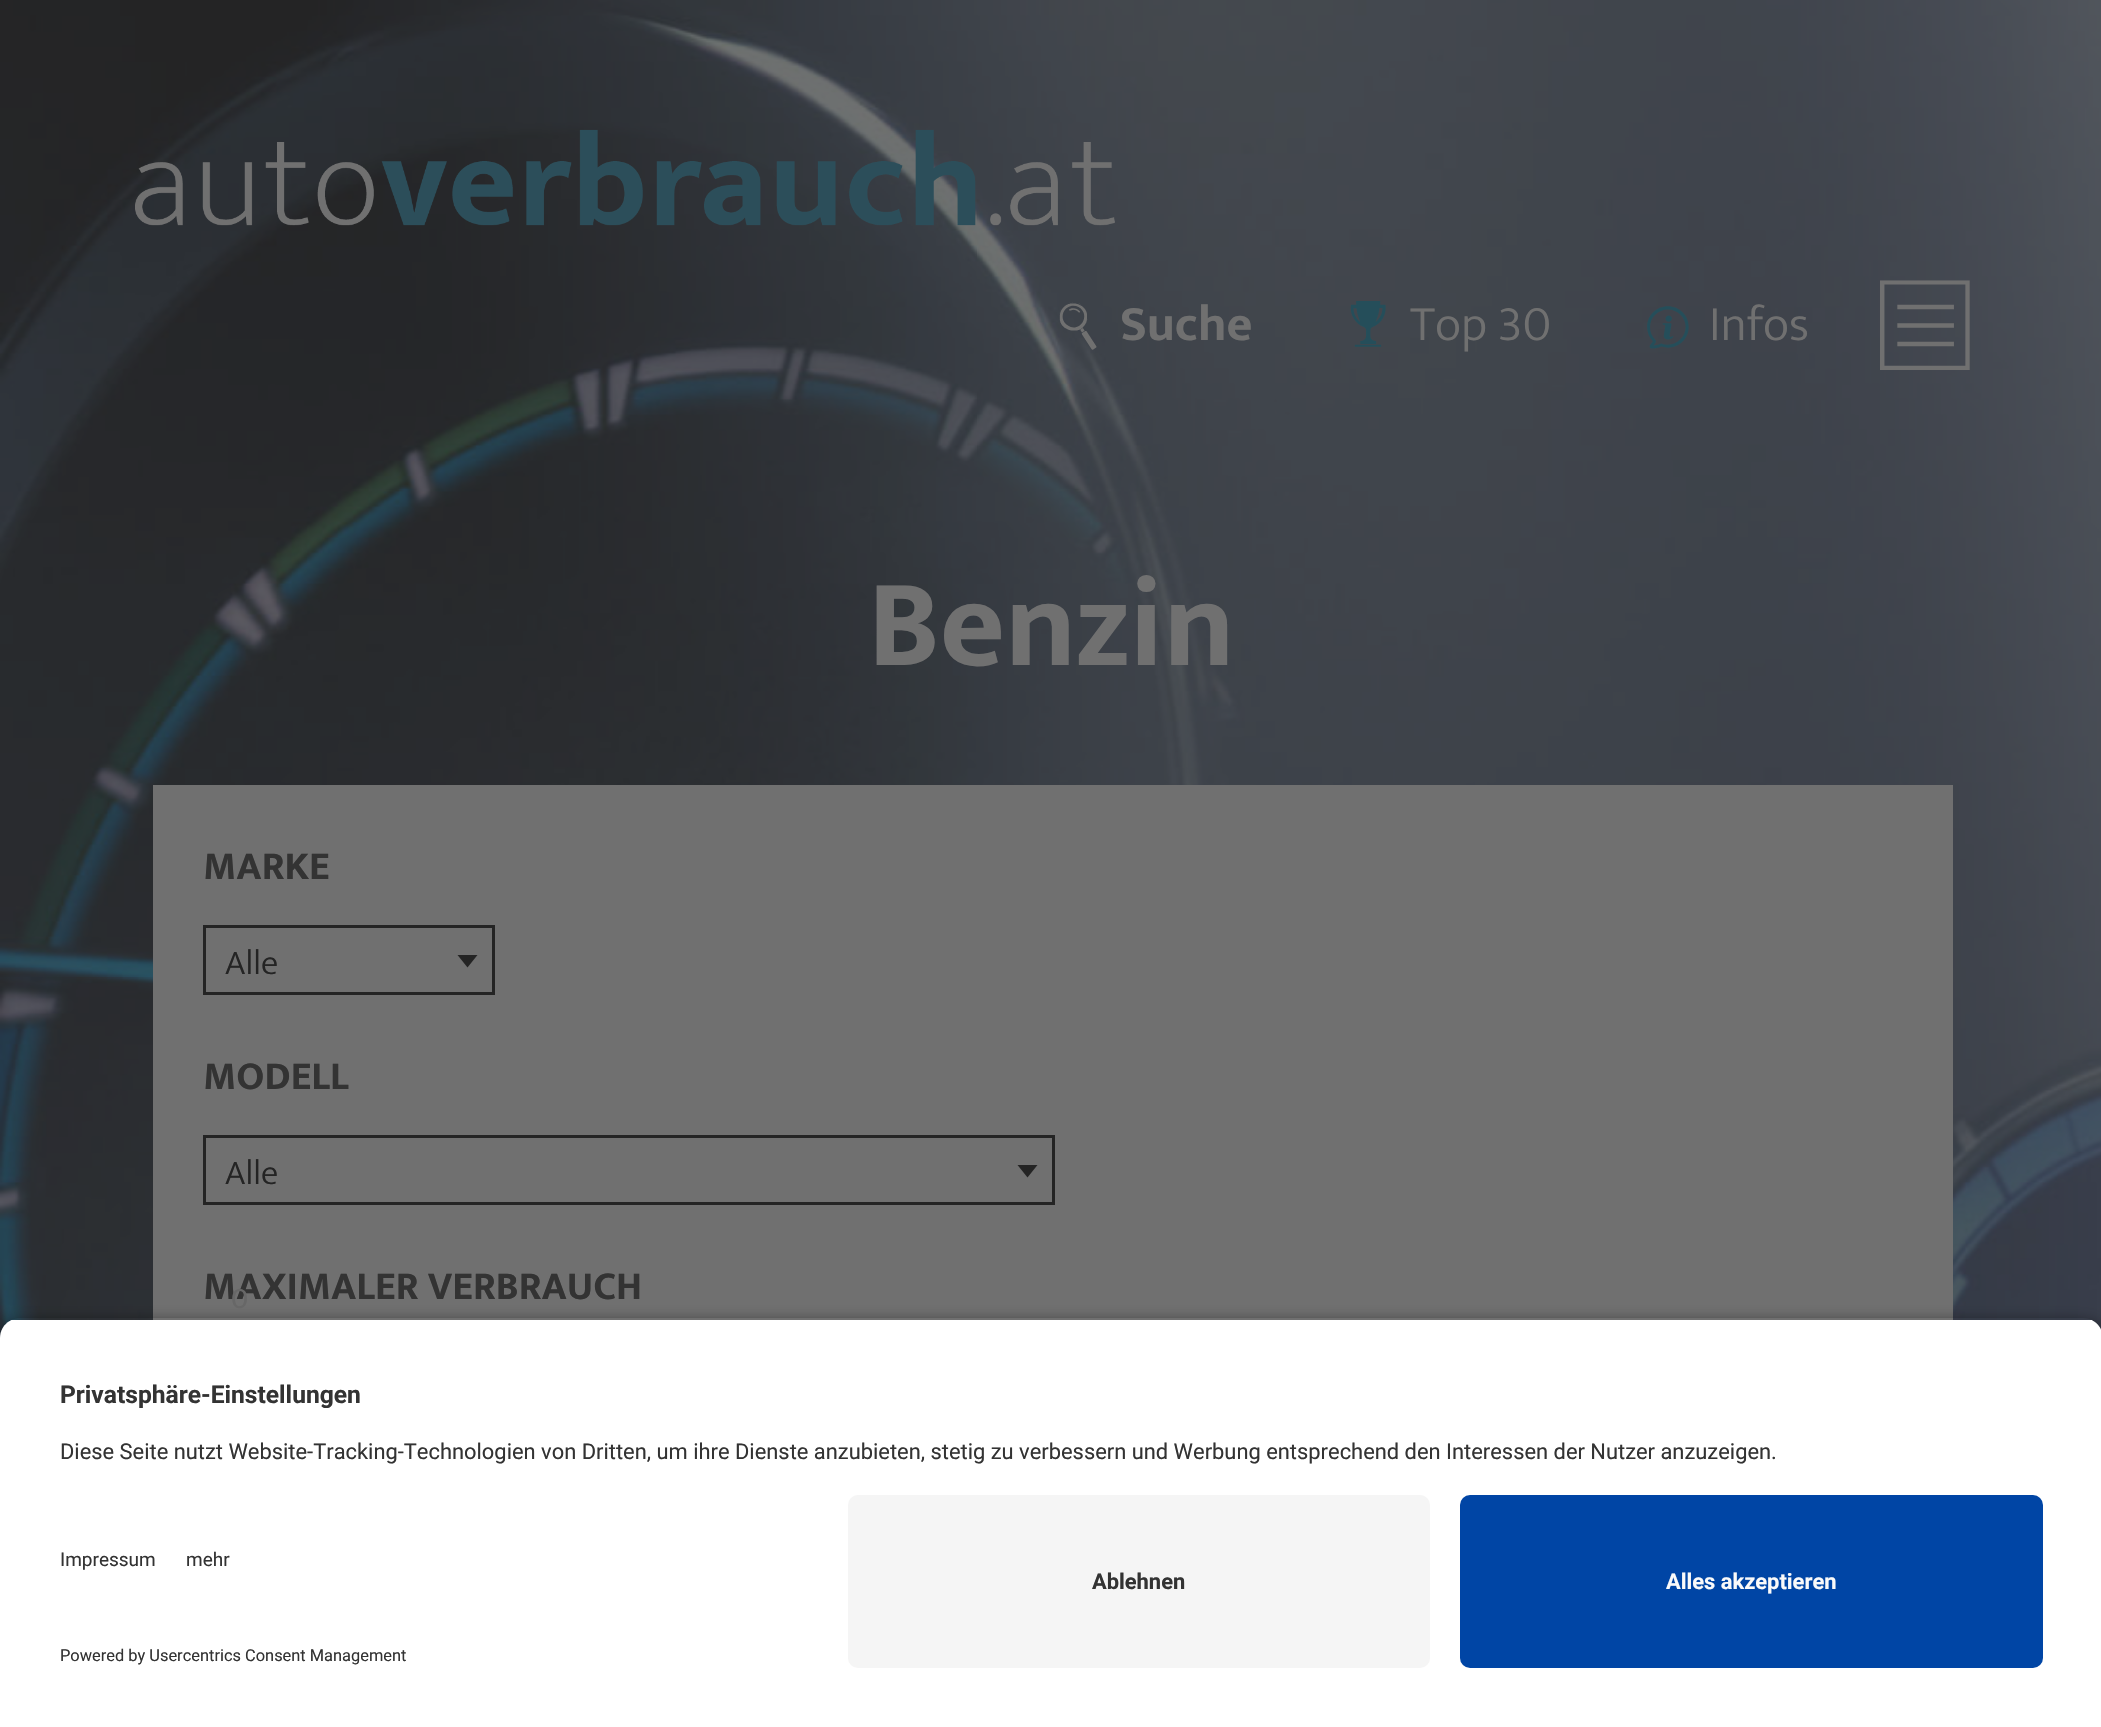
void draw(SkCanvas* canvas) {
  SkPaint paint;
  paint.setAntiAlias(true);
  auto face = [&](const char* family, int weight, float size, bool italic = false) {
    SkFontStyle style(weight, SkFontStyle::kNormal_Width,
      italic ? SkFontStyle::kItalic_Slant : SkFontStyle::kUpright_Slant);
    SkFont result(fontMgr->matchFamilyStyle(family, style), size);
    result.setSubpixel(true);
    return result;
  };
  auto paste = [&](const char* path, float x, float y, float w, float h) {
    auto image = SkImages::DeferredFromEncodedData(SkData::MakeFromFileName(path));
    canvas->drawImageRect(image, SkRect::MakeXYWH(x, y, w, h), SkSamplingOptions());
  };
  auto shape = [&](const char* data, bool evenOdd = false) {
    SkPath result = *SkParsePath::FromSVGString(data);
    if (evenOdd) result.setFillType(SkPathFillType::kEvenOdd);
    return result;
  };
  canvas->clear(0xffffffff);
  paste("img/1.png", 0, 0, 2101, 1338);
  paste("img/2.png", 135, 129, 980, 97);
  paste("img/3.png", 1059, 302, 38, 48);
  paste("img/4.png", 1350, 301, 36, 46);
  paste("img/5.png", 1647, 306, 42, 43);
  paste("img/6.png", 1880, 280, 90, 90);
  paint.setColor(0xff707070);
  canvas->drawRect(SkRect::MakeXYWH(153, 785, 1800, 535), paint);
  paint.setStroke(true);
  paint.setStrokeWidth(3);
  paint.setColor(0xff242424);
  canvas->drawRect(SkRect::MakeXYWH(204.5f, 926.5f, 289, 67), paint);
  paint.setStroke(false);
  canvas->drawPath(shape("M457.5 955H477.5L467.5 967.5Z"), paint);
  paint.setStroke(true);
  canvas->drawRect(SkRect::MakeXYWH(204.5f, 1136.5f, 849, 67), paint);
  paint.setStroke(false);
  canvas->drawPath(shape("M1017.5 1165H1037.5L1027.5 1177.5Z"), paint);
  canvas->save();
  canvas->clipPath(shape("M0 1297H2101V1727H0ZM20 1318H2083C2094 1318 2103 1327 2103 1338V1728H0V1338C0 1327 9 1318 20 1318Z", true), true);
  paint.setColor(0xcc000000);
  paint.setMaskFilter(SkMaskFilter::MakeBlur(kNormal_SkBlurStyle, 9));
  canvas->drawRoundRect(SkRect::MakeXYWH(0, 1325, 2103, 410), 20, 20, paint);
  paint.setMaskFilter(nullptr);
  canvas->restore();
  canvas->save();
  canvas->clipPath(shape("M20 1318H2083C2094 1318 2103 1327 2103 1338V1475H0V1338C0 1327 9 1318 20 1318Z"), true);
  paint.setColor(0xffffffff);
  canvas->drawRect(SkRect::MakeXYWH(0, 1320, 2101, 155), paint);
  canvas->restore();
  paint.setColor(0xfff5f5f5);
  canvas->drawRoundRect(SkRect::MakeXYWH(848, 1495, 582, 173), 10, 10, paint);
  paint.setColor(0xff0045a5);
  canvas->drawRoundRect(SkRect::MakeXYWH(1460, 1495, 583, 173), 10, 10, paint);
  auto f0 = face("Mukta", 700, 50);
  paint.setColor(0xff707070);
  canvas->drawString("Suche", 1120, 340, f0, paint);
  auto f1 = face("Mukta", 300, 50);
  canvas->drawString("Top 30", 1410, 340, f1, paint);
  canvas->drawString("Infos", 1709, 340, f1, paint);
  auto f2 = face("Mukta", 700, 126);
  canvas->drawString("Benzin", 868, 665, f2, paint);
  auto f3 = face("Mukta", 700, 40);
  paint.setColor(0xff333333);
  canvas->drawString("MARKE", 203, 879, f3, paint);
  auto f4 = face("Mukta", 300, 35);
  paint.setColor(0xff242424);
  canvas->drawString("Alle", 225, 974, f4, paint);
  paint.setColor(0xff333333);
  canvas->drawString("MODELL", 203, 1089, f3, paint);
  paint.setColor(0xff242424);
  canvas->drawString("Alle", 225, 1184, f4, paint);
  paint.setColor(0xff333333);
  canvas->drawString("MAXIMALER VERBRAUCH", 203, 1299, f3, paint);
  auto f5 = face("Mukta", 400, 30);
  paint.setColor(0xff676767);
  canvas->drawString("0", 231, 1308, f5, paint);
  auto f6 = face("Roboto", 700, 24.6f);
  paint.setColor(0xff333333);
  canvas->drawString("Privatsphäre-Einstellungen", 60, 1403, f6, paint);
  auto f7 = face("Roboto", 400, 21.88f);
  canvas->drawString("Diese Seite nutzt Website-Tracking-Technologien von Dritten, um ihre Dienste anzubieten, stetig zu verbessern und Werbung entsprechend den Interessen der Nutzer anzuzeigen.", 60, 1459, f7, paint);
  auto f8 = face("Roboto", 400, 19);
  canvas->drawString("Impressum", 60, 1566, f8, paint);
  canvas->drawString("mehr", 186, 1566, f8, paint);
  auto f9 = face("Roboto", 400, 16.4f);
  canvas->drawString("Powered by Usercentrics Consent Management", 60, 1661, f9, paint);
  auto f10 = face("Roboto", 700, 21.88f);
  canvas->drawString("Ablehnen", 1092, 1589, f10, paint);
  paint.setColor(0xfffafafa);
  canvas->drawString("Alles akzeptieren", 1666, 1589, f10, paint);
}
